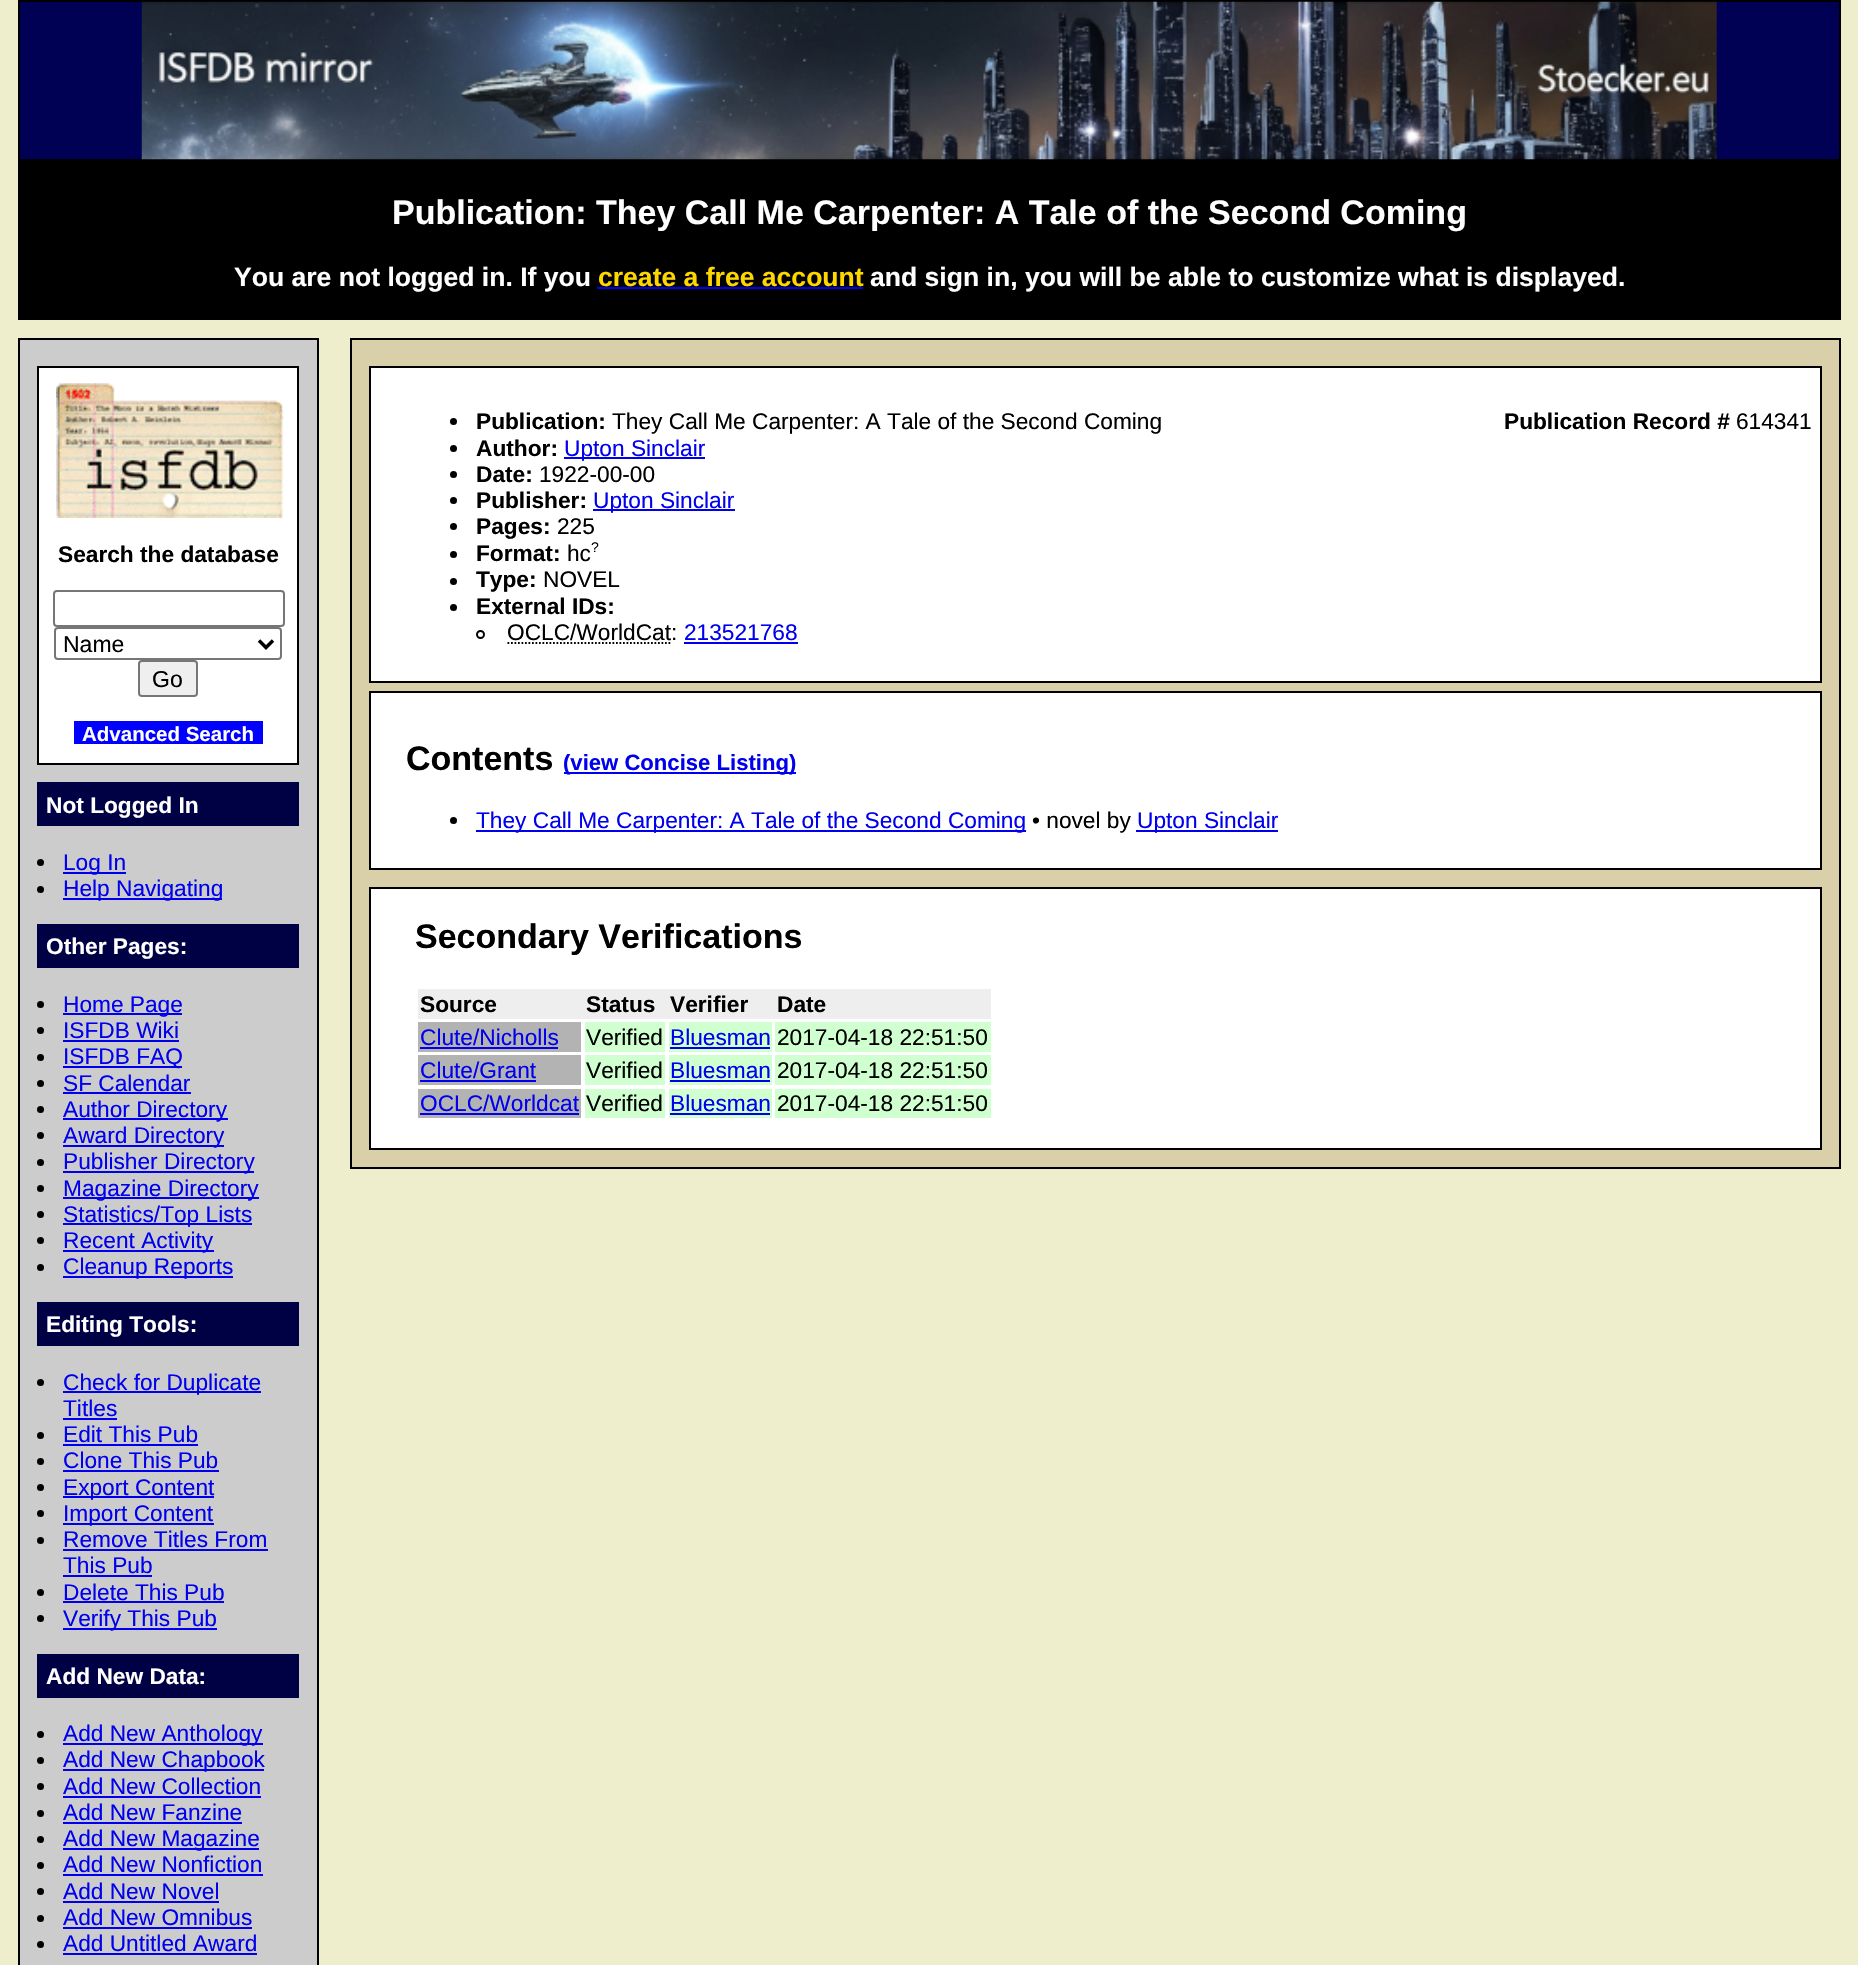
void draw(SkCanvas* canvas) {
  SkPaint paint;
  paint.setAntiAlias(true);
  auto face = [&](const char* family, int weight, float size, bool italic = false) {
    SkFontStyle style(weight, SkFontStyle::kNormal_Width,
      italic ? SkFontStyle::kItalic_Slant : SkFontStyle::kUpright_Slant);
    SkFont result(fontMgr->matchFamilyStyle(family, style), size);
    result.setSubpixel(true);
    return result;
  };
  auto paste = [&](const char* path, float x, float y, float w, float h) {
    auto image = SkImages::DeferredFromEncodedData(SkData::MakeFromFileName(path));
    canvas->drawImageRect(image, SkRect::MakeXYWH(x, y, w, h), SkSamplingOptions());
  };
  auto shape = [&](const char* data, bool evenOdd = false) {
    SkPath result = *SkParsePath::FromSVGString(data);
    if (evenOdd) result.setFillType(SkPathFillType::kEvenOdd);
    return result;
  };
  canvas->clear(0xffeeeecc);
  paint.setColor(0xff000055);
  canvas->drawRect(SkRect::MakeXYWH(19, 1, 1821, 159), paint);
  paint.setStroke(true);
  paint.setStrokeWidth(2);
  paint.setColor(0xff000000);
  canvas->drawRect(SkRect::MakeXYWH(19, 1, 1821, 159), paint);
  paste("img/1.png", 141, 1, 1576, 159);
  paint.setStroke(false);
  canvas->drawRect(SkRect::MakeXYWH(18, 161, 1823, 159), paint);
  paint.setColor(0xff0000ee);
  canvas->drawRect(SkRect::MakeXYWH(597, 287, 266, 2), paint);
  paint.setColor(0xffcccccc);
  canvas->drawRect(SkRect::MakeXYWH(19, 339, 299, 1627), paint);
  paint.setStroke(true);
  paint.setColor(0xff000000);
  canvas->drawRect(SkRect::MakeXYWH(19, 339, 299, 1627), paint);
  paint.setStroke(false);
  paint.setColor(0xffffffff);
  canvas->drawRect(SkRect::MakeXYWH(38, 367, 260, 397), paint);
  paint.setStroke(true);
  paint.setColor(0xff000000);
  canvas->drawRect(SkRect::MakeXYWH(38, 367, 260, 397), paint);
  paste("img/2.png", 56, 383, 228, 135);
  paint.setColor(0xff767676);
  canvas->drawRoundRect(SkRect::MakeXYWH(54, 591, 230, 35), 3, 3, paint);
  canvas->drawRoundRect(SkRect::MakeXYWH(55, 628, 226, 31), 3, 3, paint);
  paint.setStrokeWidth(3.5f);
  paint.setColor(0xff000000);
  canvas->drawPath(shape("M259 640.5L266 647.5L273 640.5"), paint);
  paint.setStroke(false);
  paint.setColor(0xffefefef);
  canvas->drawRoundRect(SkRect::MakeXYWH(139, 661, 58, 35), 3, 3, paint);
  paint.setStroke(true);
  paint.setStrokeWidth(2);
  paint.setColor(0xff767676);
  canvas->drawRoundRect(SkRect::MakeXYWH(139, 661, 58, 35), 3, 3, paint);
  paint.setStroke(false);
  paint.setColor(0xff0000ff);
  canvas->drawRect(SkRect::MakeXYWH(74, 721, 189, 23), paint);
  paint.setColor(0xff000044);
  canvas->drawRect(SkRect::MakeXYWH(37, 782, 262, 44), paint);
  paint.setColor(0xff000000);
  canvas->drawCircle(40.5f, 862.5f, 3.5f, paint);
  paint.setColor(0xff0000ee);
  canvas->drawRect(SkRect::MakeXYWH(63, 872, 63, 2), paint);
  paint.setColor(0xff000000);
  canvas->drawCircle(40.5f, 889.5f, 3.5f, paint);
  paint.setColor(0xff0000ee);
  canvas->drawRect(SkRect::MakeXYWH(63, 898, 159, 2), paint);
  paint.setColor(0xff000044);
  canvas->drawRect(SkRect::MakeXYWH(37, 924, 262, 44), paint);
  paint.setColor(0xff000000);
  canvas->drawCircle(40.5f, 1004.5f, 3.5f, paint);
  paint.setColor(0xff0000ee);
  canvas->drawRect(SkRect::MakeXYWH(63, 1013, 119, 2), paint);
  paint.setColor(0xff000000);
  canvas->drawCircle(40.5f, 1030.5f, 3.5f, paint);
  paint.setColor(0xff0000ee);
  canvas->drawRect(SkRect::MakeXYWH(63, 1040, 116, 2), paint);
  paint.setColor(0xff000000);
  canvas->drawCircle(40.5f, 1057.5f, 3.5f, paint);
  paint.setColor(0xff0000ee);
  canvas->drawRect(SkRect::MakeXYWH(63, 1066, 119, 2), paint);
  paint.setColor(0xff000000);
  canvas->drawCircle(40.5f, 1083.5f, 3.5f, paint);
  paint.setColor(0xff0000ee);
  canvas->drawRect(SkRect::MakeXYWH(63, 1092, 128, 2), paint);
  paint.setColor(0xff000000);
  canvas->drawCircle(40.5f, 1109.5f, 3.5f, paint);
  paint.setColor(0xff0000ee);
  canvas->drawRect(SkRect::MakeXYWH(63, 1118, 165, 2), paint);
  paint.setColor(0xff000000);
  canvas->drawCircle(40.5f, 1135.5f, 3.5f, paint);
  paint.setColor(0xff0000ee);
  canvas->drawRect(SkRect::MakeXYWH(63, 1145, 161, 2), paint);
  paint.setColor(0xff000000);
  canvas->drawCircle(40.5f, 1162.5f, 3.5f, paint);
  paint.setColor(0xff0000ee);
  canvas->drawRect(SkRect::MakeXYWH(63, 1171, 191, 2), paint);
  paint.setColor(0xff000000);
  canvas->drawCircle(40.5f, 1188.5f, 3.5f, paint);
  paint.setColor(0xff0000ee);
  canvas->drawRect(SkRect::MakeXYWH(63, 1197, 196, 2), paint);
  paint.setColor(0xff000000);
  canvas->drawCircle(40.5f, 1214.5f, 3.5f, paint);
  paint.setColor(0xff0000ee);
  canvas->drawRect(SkRect::MakeXYWH(63, 1223, 189, 2), paint);
  paint.setColor(0xff000000);
  canvas->drawCircle(40.5f, 1240.5f, 3.5f, paint);
  paint.setColor(0xff0000ee);
  canvas->drawRect(SkRect::MakeXYWH(63, 1250, 151, 2), paint);
  paint.setColor(0xff000000);
  canvas->drawCircle(40.5f, 1267.5f, 3.5f, paint);
  paint.setColor(0xff0000ee);
  canvas->drawRect(SkRect::MakeXYWH(63, 1276, 170, 2), paint);
  paint.setColor(0xff000044);
  canvas->drawRect(SkRect::MakeXYWH(37, 1302, 262, 44), paint);
  paint.setColor(0xff000000);
  canvas->drawCircle(40.5f, 1382.5f, 3.5f, paint);
  paint.setColor(0xff0000ee);
  canvas->drawRect(SkRect::MakeXYWH(63, 1391, 198, 2), paint);
  canvas->drawRect(SkRect::MakeXYWH(63, 1418, 54, 2), paint);
  paint.setColor(0xff000000);
  canvas->drawCircle(40.5f, 1435.5f, 3.5f, paint);
  paint.setColor(0xff0000ee);
  canvas->drawRect(SkRect::MakeXYWH(63, 1444, 135, 2), paint);
  paint.setColor(0xff000000);
  canvas->drawCircle(40.5f, 1461.5f, 3.5f, paint);
  paint.setColor(0xff0000ee);
  canvas->drawRect(SkRect::MakeXYWH(63, 1470, 156, 2), paint);
  paint.setColor(0xff000000);
  canvas->drawCircle(40.5f, 1487.5f, 3.5f, paint);
  paint.setColor(0xff0000ee);
  canvas->drawRect(SkRect::MakeXYWH(63, 1496, 151, 2), paint);
  paint.setColor(0xff000000);
  canvas->drawCircle(40.5f, 1513.5f, 3.5f, paint);
  paint.setColor(0xff0000ee);
  canvas->drawRect(SkRect::MakeXYWH(63, 1523, 151, 2), paint);
  paint.setColor(0xff000000);
  canvas->drawCircle(40.5f, 1540.5f, 3.5f, paint);
  paint.setColor(0xff0000ee);
  canvas->drawRect(SkRect::MakeXYWH(63, 1549, 205, 2), paint);
  canvas->drawRect(SkRect::MakeXYWH(63, 1575, 89, 2), paint);
  paint.setColor(0xff000000);
  canvas->drawCircle(40.5f, 1592.5f, 3.5f, paint);
  paint.setColor(0xff0000ee);
  canvas->drawRect(SkRect::MakeXYWH(63, 1601, 161, 2), paint);
  paint.setColor(0xff000000);
  canvas->drawCircle(40.5f, 1618.5f, 3.5f, paint);
  paint.setColor(0xff0000ee);
  canvas->drawRect(SkRect::MakeXYWH(63, 1628, 154, 2), paint);
  paint.setColor(0xff000044);
  canvas->drawRect(SkRect::MakeXYWH(37, 1654, 262, 44), paint);
  paint.setColor(0xff000000);
  canvas->drawCircle(40.5f, 1734.5f, 3.5f, paint);
  paint.setColor(0xff0000ee);
  canvas->drawRect(SkRect::MakeXYWH(63, 1743, 200, 2), paint);
  paint.setColor(0xff000000);
  canvas->drawCircle(40.5f, 1760.5f, 3.5f, paint);
  paint.setColor(0xff0000ee);
  canvas->drawRect(SkRect::MakeXYWH(63, 1769, 201, 2), paint);
  paint.setColor(0xff000000);
  canvas->drawCircle(40.5f, 1786.5f, 3.5f, paint);
  paint.setColor(0xff0000ee);
  canvas->drawRect(SkRect::MakeXYWH(63, 1796, 198, 2), paint);
  paint.setColor(0xff000000);
  canvas->drawCircle(40.5f, 1813.5f, 3.5f, paint);
  paint.setColor(0xff0000ee);
  canvas->drawRect(SkRect::MakeXYWH(63, 1822, 179, 2), paint);
  paint.setColor(0xff000000);
  canvas->drawCircle(40.5f, 1839.5f, 3.5f, paint);
  paint.setColor(0xff0000ee);
  canvas->drawRect(SkRect::MakeXYWH(63, 1848, 196, 2), paint);
  paint.setColor(0xff000000);
  canvas->drawCircle(40.5f, 1865.5f, 3.5f, paint);
  paint.setColor(0xff0000ee);
  canvas->drawRect(SkRect::MakeXYWH(63, 1874, 200, 2), paint);
  paint.setColor(0xff000000);
  canvas->drawCircle(40.5f, 1891.5f, 3.5f, paint);
  paint.setColor(0xff0000ee);
  canvas->drawRect(SkRect::MakeXYWH(63, 1901, 156, 2), paint);
  paint.setColor(0xff000000);
  canvas->drawCircle(40.5f, 1918.5f, 3.5f, paint);
  paint.setColor(0xff0000ee);
  canvas->drawRect(SkRect::MakeXYWH(63, 1927, 189, 2), paint);
  paint.setColor(0xff000000);
  canvas->drawCircle(40.5f, 1944.5f, 3.5f, paint);
  paint.setColor(0xff0000ee);
  canvas->drawRect(SkRect::MakeXYWH(63, 1953, 194, 2), paint);
  paint.setColor(0xffd9d0a9);
  canvas->drawRect(SkRect::MakeXYWH(351, 339, 1489, 829), paint);
  paint.setStroke(true);
  paint.setColor(0xff000000);
  canvas->drawRect(SkRect::MakeXYWH(351, 339, 1489, 829), paint);
  paint.setStroke(false);
  paint.setColor(0xffffffff);
  canvas->drawRect(SkRect::MakeXYWH(370, 367, 1451, 315), paint);
  paint.setStroke(true);
  paint.setColor(0xff000000);
  canvas->drawRect(SkRect::MakeXYWH(370, 367, 1451, 315), paint);
  paint.setStroke(false);
  canvas->drawCircle(453.5f, 421.5f, 3.5f, paint);
  canvas->drawCircle(453.5f, 448.5f, 3.5f, paint);
  paint.setColor(0xff0000ee);
  canvas->drawRect(SkRect::MakeXYWH(564, 457, 141, 2), paint);
  paint.setColor(0xff000000);
  canvas->drawCircle(453.5f, 474.5f, 3.5f, paint);
  canvas->drawCircle(453.5f, 500.5f, 3.5f, paint);
  paint.setColor(0xff0000ee);
  canvas->drawRect(SkRect::MakeXYWH(593, 509, 142, 2), paint);
  paint.setColor(0xff000000);
  canvas->drawCircle(453.5f, 526.5f, 3.5f, paint);
  canvas->drawCircle(453.5f, 554.5f, 3.5f, paint);
  canvas->drawCircle(453.5f, 581.5f, 3.5f, paint);
  canvas->drawCircle(453.5f, 607.5f, 3.5f, paint);
  paint.setStroke(true);
  canvas->drawCircle(480.5f, 634.5f, 3.5f, paint);
  paint.setStrokeWidth(1.8f);
  paint.setPathEffect(SkDashPathEffect::Make({{1.75f, 1.75f}}, 0));
  canvas->drawPath(shape("M507.5 643H671"), paint);
  paint.setPathEffect(nullptr);
  paint.setStroke(false);
  paint.setColor(0xff0000ee);
  canvas->drawRect(SkRect::MakeXYWH(684, 642, 114, 2), paint);
  paint.setColor(0xffffffff);
  canvas->drawRect(SkRect::MakeXYWH(370, 692, 1451, 177), paint);
  paint.setStroke(true);
  paint.setStrokeWidth(2);
  paint.setColor(0xff000000);
  canvas->drawRect(SkRect::MakeXYWH(370, 692, 1451, 177), paint);
  paint.setStroke(false);
  paint.setColor(0xff0000ee);
  canvas->drawRect(SkRect::MakeXYWH(564, 772, 232, 2), paint);
  paint.setColor(0xff000000);
  canvas->drawCircle(453.5f, 820.5f, 3.5f, paint);
  paint.setColor(0xff0000ee);
  canvas->drawRect(SkRect::MakeXYWH(476, 830, 550, 2), paint);
  canvas->drawRect(SkRect::MakeXYWH(1136, 830, 142, 2), paint);
  paint.setColor(0xffffffff);
  canvas->drawRect(SkRect::MakeXYWH(370, 888, 1451, 261), paint);
  paint.setStroke(true);
  paint.setColor(0xff000000);
  canvas->drawRect(SkRect::MakeXYWH(370, 888, 1451, 261), paint);
  paint.setStroke(false);
  {
    const struct { float x, y, w, h; SkColor color; } items[] = {
      {418, 989, 573, 30, 0xffeeeeee},
      {418, 1022, 163, 30, 0xffb3b3b3},
      {420, 1047, 138, 2, 0xff0000ee},
      {585, 1022, 80, 30, 0xffd0ffd0},
      {669, 1022, 103, 30, 0xffd0ffd0},
      {670, 1047, 100, 2, 0xff0000ee},
      {775, 1022, 216, 30, 0xffd0ffd0},
      {418, 1055, 163, 30, 0xffb3b3b3},
      {420, 1080, 116, 2, 0xff0000ee},
      {585, 1055, 80, 30, 0xffd0ffd0},
      {669, 1055, 103, 30, 0xffd0ffd0},
      {670, 1080, 100, 2, 0xff0000ee},
      {775, 1055, 216, 30, 0xffd0ffd0},
      {418, 1089, 163, 29, 0xffb3b3b3},
      {420, 1113, 159, 2, 0xff0000ee},
      {585, 1089, 80, 29, 0xffd0ffd0},
      {669, 1089, 103, 29, 0xffd0ffd0},
      {670, 1113, 100, 2, 0xff0000ee},
      {775, 1089, 216, 29, 0xffd0ffd0},
    };
    for (auto [x, y, w, h, color] : items) {
      paint.setColor(color);
      canvas->drawRect(SkRect::MakeXYWH(x, y, w, h), paint);
    }
  }
  auto f0 = face("Liberation Sans", 700, 34);
  paint.setColor(0xffffffff);
  canvas->drawString("Publication: They Call Me Carpenter: A Tale of the Second Coming", 392, 224, f0, paint);
  auto f1 = face("Liberation Sans", 700, 26.55f);
  canvas->drawString("You are not logged in. If you", 234, 286, f1, paint);
  paint.setColor(0xffffd700);
  canvas->drawString("create a free account", 598, 286, f1, paint);
  paint.setColor(0xffffffff);
  canvas->drawString("and sign in, you will be able to customize what is displayed.", 870, 286, f1, paint);
  auto f2 = face("Liberation Sans", 700, 22.7f);
  paint.setColor(0xff000000);
  canvas->drawString("Search the database", 58, 562, f2, paint);
  auto f3 = face("Liberation Sans", 400, 23);
  canvas->drawString("Name", 63, 652, f3, paint);
  canvas->drawString("Go", 152, 687, f3, paint);
  auto f4 = face("Liberation Sans", 700, 20.5f);
  paint.setColor(0xffffffff);
  canvas->drawString("Advanced Search", 82, 741, f4, paint);
  canvas->drawString("Not Logged In", 46, 813, f2, paint);
  auto f5 = face("Liberation Sans", 400, 22.7f);
  paint.setColor(0xff0000ee);
  canvas->drawString("Log In", 63, 870, f5, paint);
  canvas->drawString("Help Navigating", 63, 896, f5, paint);
  paint.setColor(0xffffffff);
  canvas->drawString("Other Pages:", 46, 954, f2, paint);
  paint.setColor(0xff0000ee);
  {
    const struct { const char* s; float x, y; } items[] = {
      {"Home Page", 63, 1012},
      {"ISFDB Wiki", 63, 1038},
      {"ISFDB FAQ", 63, 1064},
      {"SF Calendar", 63, 1091},
      {"Author Directory", 63, 1117},
      {"Award Directory", 63, 1143},
      {"Publisher Directory", 63, 1169},
      {"Magazine Directory", 63, 1196},
      {"Statistics/Top Lists", 63, 1222},
      {"Recent Activity", 63, 1248},
      {"Cleanup Reports", 63, 1274},
    };
    for (auto [s, x, y] : items) {
      canvas->drawString(s, x, y, f5, paint);
    }
  }
  paint.setColor(0xffffffff);
  canvas->drawString("Editing Tools:", 46, 1332, f2, paint);
  paint.setColor(0xff0000ee);
  {
    const struct { const char* s; float x, y; } items[] = {
      {"Check for Duplicate", 63, 1390},
      {"Titles", 63, 1416},
      {"Edit This Pub", 63, 1442},
      {"Clone This Pub", 63, 1468},
      {"Export Content", 63, 1495},
      {"Import Content", 63, 1521},
      {"Remove Titles From", 63, 1547},
      {"This Pub", 63, 1573},
      {"Delete This Pub", 63, 1600},
      {"Verify This Pub", 63, 1626},
    };
    for (auto [s, x, y] : items) {
      canvas->drawString(s, x, y, f5, paint);
    }
  }
  paint.setColor(0xffffffff);
  canvas->drawString("Add New Data:", 46, 1684, f2, paint);
  paint.setColor(0xff0000ee);
  {
    const struct { const char* s; float x, y; } items[] = {
      {"Add New Anthology", 63, 1741},
      {"Add New Chapbook", 63, 1767},
      {"Add New Collection", 63, 1794},
      {"Add New Fanzine", 63, 1820},
      {"Add New Magazine", 63, 1846},
      {"Add New Nonfiction", 63, 1872},
      {"Add New Novel", 63, 1899},
      {"Add New Omnibus", 63, 1925},
      {"Add Untitled Award", 63, 1951},
    };
    for (auto [s, x, y] : items) {
      canvas->drawString(s, x, y, f5, paint);
    }
  }
  paint.setColor(0xff000000);
  canvas->drawString("Publication:", 476, 429, f2, paint);
  canvas->drawString("They Call Me Carpenter: A Tale of the Second Coming", 612, 429, f5, paint);
  canvas->drawString("Publication Record #", 1504, 429, f2, paint);
  canvas->drawString("614341", 1736, 429, f5, paint);
  canvas->drawString("Author:", 476, 456, f2, paint);
  paint.setColor(0xff0000ee);
  canvas->drawString("Upton Sinclair", 564, 456, f5, paint);
  paint.setColor(0xff000000);
  canvas->drawString("Date:", 476, 482, f2, paint);
  canvas->drawString("1922-00-00", 539, 482, f5, paint);
  canvas->drawString("Publisher:", 476, 508, f2, paint);
  paint.setColor(0xff0000ee);
  canvas->drawString("Upton Sinclair", 593, 508, f5, paint);
  paint.setColor(0xff000000);
  canvas->drawString("Pages:", 476, 534, f2, paint);
  canvas->drawString("225", 557, 534, f5, paint);
  canvas->drawString("Format:", 476, 561, f2, paint);
  canvas->drawString("hc", 567, 561, f5, paint);
  auto f6 = face("Liberation Sans", 400, 14);
  canvas->drawString("?", 591, 552, f6, paint);
  canvas->drawString("Type:", 476, 587, f2, paint);
  canvas->drawString("NOVEL", 543, 587, f5, paint);
  canvas->drawString("External IDs:", 476, 614, f2, paint);
  canvas->drawString("OCLC/WorldCat:", 507, 640, f5, paint);
  paint.setColor(0xff0000ee);
  canvas->drawString("213521768", 684, 640, f5, paint);
  paint.setColor(0xff000000);
  canvas->drawString("Contents", 406, 770, f0, paint);
  auto f7 = face("Liberation Sans", 700, 22.1f);
  paint.setColor(0xff0000ee);
  canvas->drawString("(view Concise Listing)", 563, 770, f7, paint);
  canvas->drawString("They Call Me Carpenter: A Tale of the Second Coming", 476, 828, f5, paint);
  paint.setColor(0xff000000);
  canvas->drawString("• novel by", 1032, 828, f5, paint);
  paint.setColor(0xff0000ee);
  canvas->drawString("Upton Sinclair", 1137, 828, f5, paint);
  paint.setColor(0xff000000);
  canvas->drawString("Secondary Verifications", 415, 948, f0, paint);
  {
    const struct { const char* s; float x, y; } items[] = {
      {"Source", 420, 1012},
      {"Status", 586, 1012},
      {"Verifier", 670, 1012},
      {"Date", 777, 1012},
    };
    for (auto [s, x, y] : items) {
      canvas->drawString(s, x, y, f2, paint);
    }
  }
  paint.setColor(0xff0000ee);
  canvas->drawString("Clute/Nicholls", 420, 1045, f5, paint);
  paint.setColor(0xff000000);
  canvas->drawString("Verified", 586, 1045, f5, paint);
  paint.setColor(0xff0000ee);
  canvas->drawString("Bluesman", 670, 1045, f5, paint);
  paint.setColor(0xff000000);
  canvas->drawString("2017-04-18 22:51:50", 777, 1045, f5, paint);
  paint.setColor(0xff0000ee);
  canvas->drawString("Clute/Grant", 420, 1078, f5, paint);
  paint.setColor(0xff000000);
  canvas->drawString("Verified", 586, 1078, f5, paint);
  paint.setColor(0xff0000ee);
  canvas->drawString("Bluesman", 670, 1078, f5, paint);
  paint.setColor(0xff000000);
  canvas->drawString("2017-04-18 22:51:50", 777, 1078, f5, paint);
  paint.setColor(0xff0000ee);
  canvas->drawString("OCLC/Worldcat", 420, 1111, f5, paint);
  paint.setColor(0xff000000);
  canvas->drawString("Verified", 586, 1111, f5, paint);
  paint.setColor(0xff0000ee);
  canvas->drawString("Bluesman", 670, 1111, f5, paint);
  paint.setColor(0xff000000);
  canvas->drawString("2017-04-18 22:51:50", 777, 1111, f5, paint);
}
